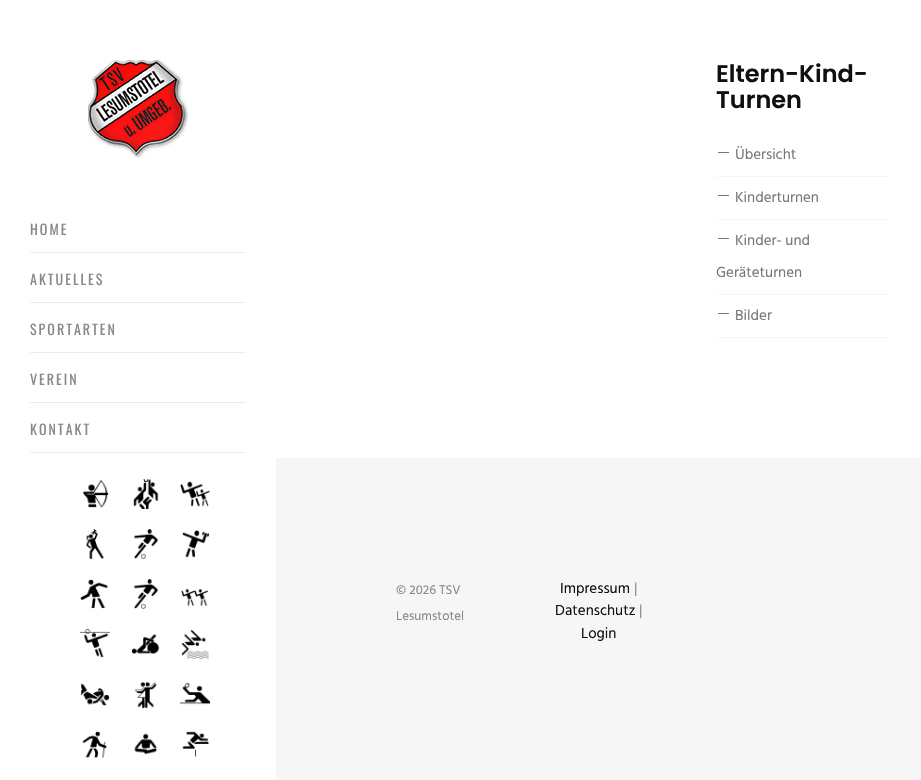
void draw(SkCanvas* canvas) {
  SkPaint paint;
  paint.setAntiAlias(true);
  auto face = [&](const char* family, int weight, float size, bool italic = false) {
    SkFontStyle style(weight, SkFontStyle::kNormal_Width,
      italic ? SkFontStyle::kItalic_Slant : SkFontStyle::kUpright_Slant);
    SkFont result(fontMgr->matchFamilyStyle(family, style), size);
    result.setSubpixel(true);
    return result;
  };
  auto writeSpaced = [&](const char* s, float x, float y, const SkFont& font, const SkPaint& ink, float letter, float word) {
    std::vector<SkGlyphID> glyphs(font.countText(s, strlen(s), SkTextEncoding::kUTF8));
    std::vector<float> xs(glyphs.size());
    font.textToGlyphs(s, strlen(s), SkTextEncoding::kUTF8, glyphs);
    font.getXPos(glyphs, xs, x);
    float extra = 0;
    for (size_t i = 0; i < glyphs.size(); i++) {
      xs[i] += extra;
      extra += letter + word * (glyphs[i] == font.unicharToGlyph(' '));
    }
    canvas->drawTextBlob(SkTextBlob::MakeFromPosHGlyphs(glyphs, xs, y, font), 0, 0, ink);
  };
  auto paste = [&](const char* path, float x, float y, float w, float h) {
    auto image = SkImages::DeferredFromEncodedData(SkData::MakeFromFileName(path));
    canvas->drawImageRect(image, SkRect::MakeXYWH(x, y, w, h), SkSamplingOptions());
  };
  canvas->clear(0xffffffff);
  paste("img/1.png", 88, 60, 100, 98);
  {
    const struct { float x, y, w, h; SkColor color; } items[] = {
      {30, 252, 216, 1, 0xffececec},
      {30, 302, 216, 1, 0xffececec},
      {30, 352, 216, 1, 0xffececec},
      {30, 402, 216, 1, 0xffececec},
      {30, 452, 216, 1, 0xffececec},
    };
    for (auto [x, y, w, h, color] : items) {
      paint.setColor(color);
      canvas->drawRect(SkRect::MakeXYWH(x, y, w, h), paint);
    }
  }
  paste("img/2.png", 82, 480, 27, 28);
  paste("img/3.png", 133, 479, 26, 30);
  paste("img/4.png", 180, 481, 30, 26);
  paste("img/5.png", 85, 529, 19, 30);
  paste("img/6.png", 133, 529, 26, 30);
  paste("img/7.png", 182, 530, 28, 28);
  paste("img/8.png", 80, 579, 29, 30);
  paste("img/6.png", 133, 579, 26, 30);
  paste("img/9.png", 181, 589, 28, 18);
  paste("img/10.png", 80, 629, 30, 29);
  paste("img/11.png", 131, 634, 29, 21);
  paste("img/12.png", 181, 630, 28, 29);
  paste("img/13.png", 81, 683, 29, 23);
  paste("img/14.png", 134, 681, 23, 28);
  paste("img/15.png", 180, 682, 30, 23);
  paste("img/16.png", 82, 731, 25, 27);
  paste("img/17.png", 134, 733, 24, 22);
  paste("img/18.png", 182, 731, 27, 27);
  {
    const struct { float x, y, w, h; SkColor color; } items[] = {
      {716, 176, 175, 1, 0xfff6f6f6},
      {718, 152, 11, 1, 0xff777777},
      {716, 219, 175, 1, 0xfff6f6f6},
      {718, 195, 11, 1, 0xff777777},
      {716, 294, 175, 1, 0xfff6f6f6},
      {718, 238, 11, 1, 0xff777777},
      {716, 337, 175, 1, 0xfff6f6f6},
      {718, 313, 11, 1, 0xff777777},
      {276, 458, 645, 322, 0xfff6f6f6},
    };
    for (auto [x, y, w, h, color] : items) {
      paint.setColor(color);
      canvas->drawRect(SkRect::MakeXYWH(x, y, w, h), paint);
    }
  }
  auto f0 = face("Oswald", 400, 14);
  paint.setColor(0xff888888);
  {
    const struct { const char* s; float x, y; } items[] = {
      {"HOME", 30, 235},
      {"AKTUELLES", 30, 285},
      {"SPORTARTEN", 30, 335},
      {"VEREIN", 30, 385},
      {"KONTAKT", 30, 435},
    };
    for (auto [s, x, y] : items) {
      writeSpaced(s, x, y, f0, paint, 2, 0);
    }
  }
  auto f1 = face("Poppins", 600, 24);
  paint.setColor(0xff101010);
  canvas->drawString("Eltern-Kind-", 716, 82, f1, paint);
  canvas->drawString("Turnen", 716, 108, f1, paint);
  auto f2 = face("Hind", 400, 15);
  paint.setColor(0xff777777);
  {
    const struct { const char* s; float x, y; } items[] = {
      {"Übersicht", 735, 159},
      {"Kinderturnen", 735, 202},
      {"Kinder- und", 735, 245},
      {"Geräteturnen", 716, 277},
      {"Bilder", 735, 320},
    };
    for (auto [s, x, y] : items) {
      canvas->drawString(s, x, y, f2, paint);
    }
  }
  auto f3 = face("Hind", 400, 13);
  paint.setColor(0xff888888);
  canvas->drawString("© 2026 TSV", 396, 594, f3, paint);
  canvas->drawString("Lesumstotel", 396, 620, f3, paint);
  paint.setColor(0xff101010);
  canvas->drawString("Impressum", 560, 593, f2, paint);
  paint.setColor(0xff888888);
  canvas->drawString("|", 634, 593, f2, paint);
  paint.setColor(0xff101010);
  canvas->drawString("Datenschutz", 555, 615, f2, paint);
  paint.setColor(0xff888888);
  canvas->drawString("|", 639, 615, f2, paint);
  paint.setColor(0xff101010);
  canvas->drawString("Login", 581, 638, f2, paint);
}
